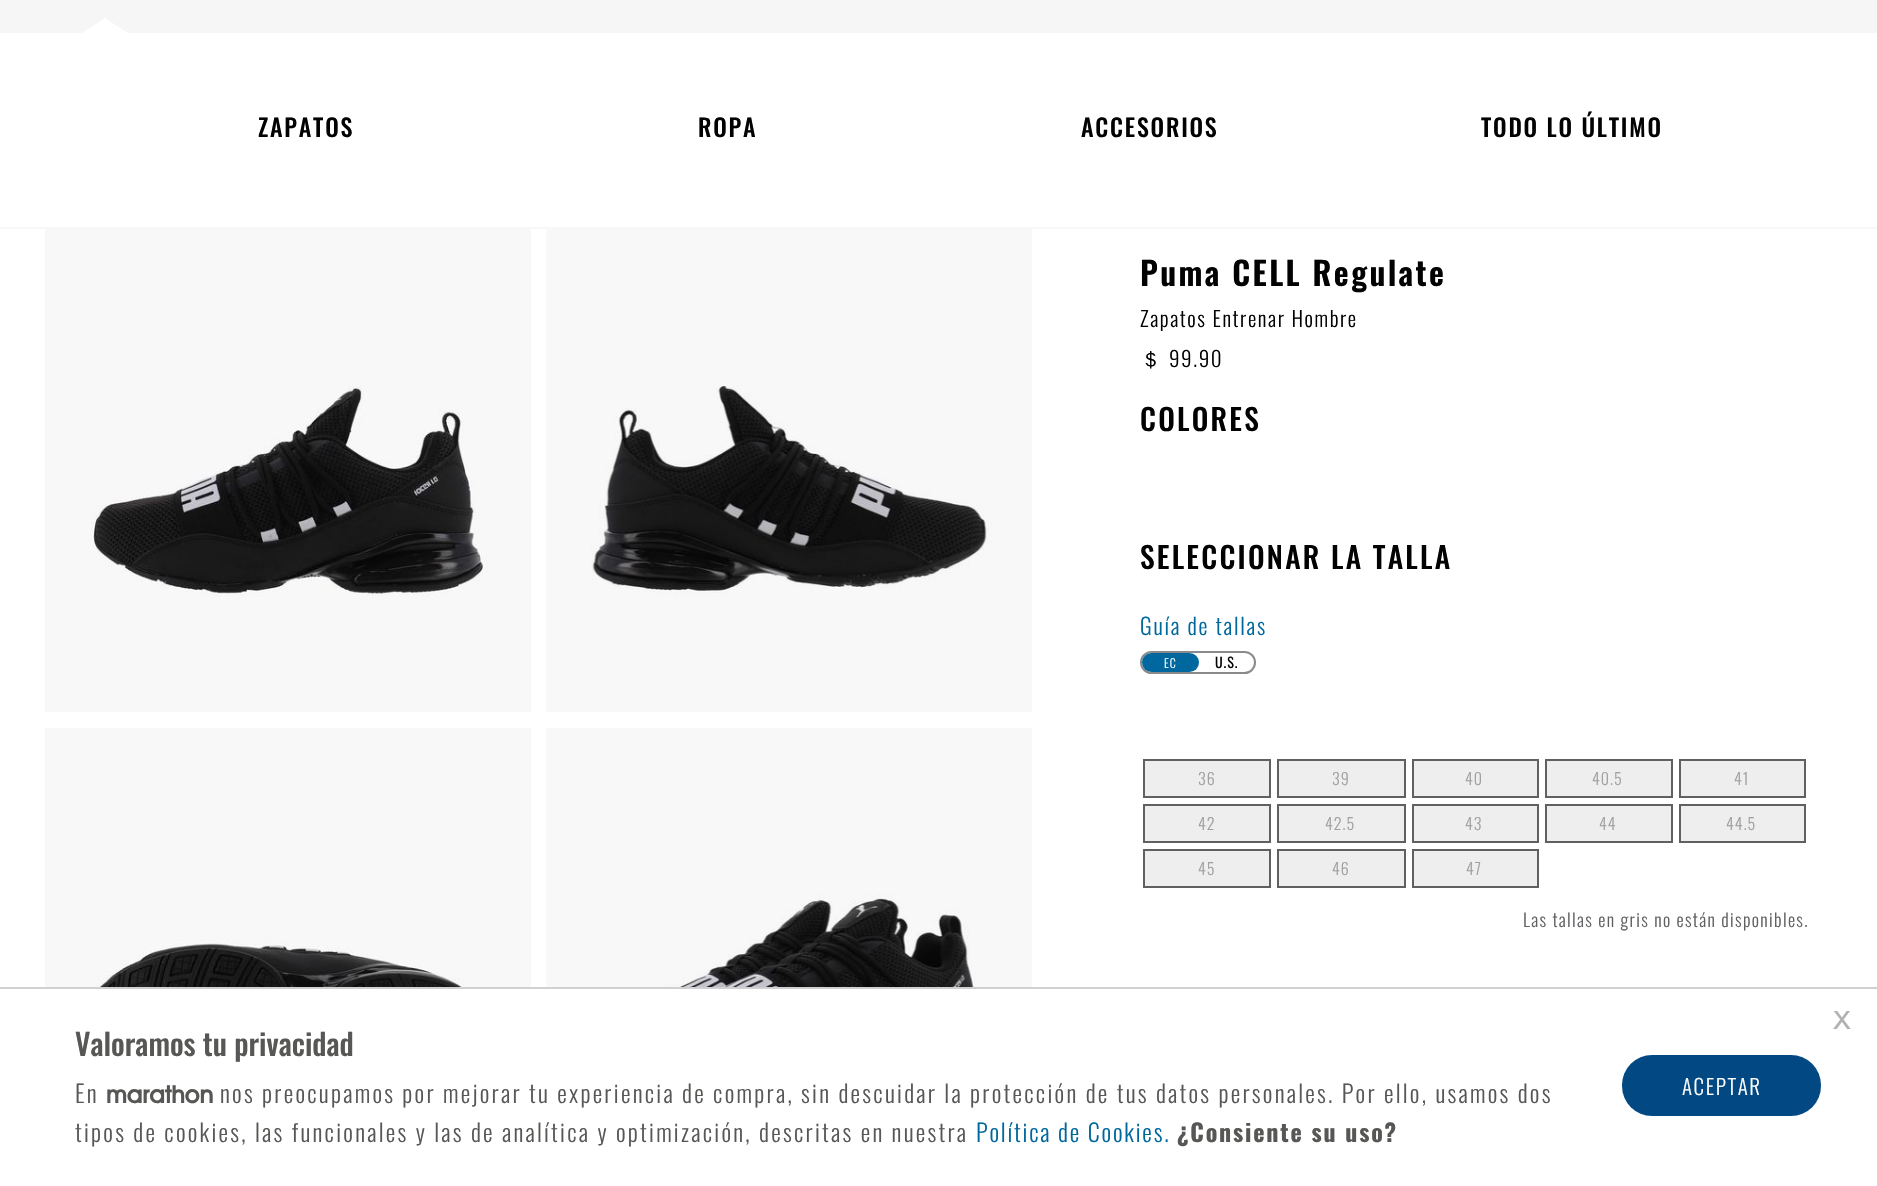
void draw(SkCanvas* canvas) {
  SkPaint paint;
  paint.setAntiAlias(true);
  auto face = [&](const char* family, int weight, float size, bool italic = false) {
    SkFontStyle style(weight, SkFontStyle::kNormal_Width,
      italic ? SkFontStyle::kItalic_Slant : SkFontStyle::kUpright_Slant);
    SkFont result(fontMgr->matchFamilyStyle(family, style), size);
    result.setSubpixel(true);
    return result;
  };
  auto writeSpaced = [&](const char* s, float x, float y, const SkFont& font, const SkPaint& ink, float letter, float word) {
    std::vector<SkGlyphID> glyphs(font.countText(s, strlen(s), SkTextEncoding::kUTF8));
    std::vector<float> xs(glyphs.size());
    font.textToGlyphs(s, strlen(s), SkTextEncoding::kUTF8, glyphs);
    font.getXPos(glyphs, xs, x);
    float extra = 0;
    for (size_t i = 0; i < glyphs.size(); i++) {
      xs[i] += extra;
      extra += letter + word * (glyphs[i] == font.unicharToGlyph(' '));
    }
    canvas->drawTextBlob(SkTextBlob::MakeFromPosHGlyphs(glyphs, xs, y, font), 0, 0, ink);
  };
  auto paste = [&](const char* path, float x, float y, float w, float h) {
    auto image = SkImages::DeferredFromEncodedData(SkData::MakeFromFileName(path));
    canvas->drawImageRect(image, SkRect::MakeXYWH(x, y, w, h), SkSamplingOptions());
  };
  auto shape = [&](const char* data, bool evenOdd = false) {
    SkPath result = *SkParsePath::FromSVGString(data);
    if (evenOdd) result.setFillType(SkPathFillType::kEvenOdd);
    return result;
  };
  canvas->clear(0xffffffff);
  paint.setColor(0xfff6f6f6);
  canvas->drawRect(SkRect::MakeXYWH(0, 0, 1877, 33), paint);
  paint.setColor(0xffffffff);
  canvas->drawPath(shape("M128 33H82L105 18Z"), paint);
  paint.setColor(0xfff7f7f7);
  canvas->drawRect(SkRect::MakeXYWH(0, 227, 1877, 2), paint);
  paste("img/1.png", 45, 229, 486, 483);
  paste("img/2.png", 546, 229, 486, 483);
  paste("img/3.png", 45, 728, 486, 259);
  paste("img/4.png", 546, 728, 486, 259);
  paint.setStroke(true);
  paint.setStrokeWidth(2);
  paint.setColor(0xff8a8a8a);
  canvas->drawRoundRect(SkRect::MakeXYWH(1141, 652, 114, 21), 10.5f, 10.5f, paint);
  paint.setStroke(false);
  paint.setColor(0xff00689f);
  canvas->drawRoundRect(SkRect::MakeXYWH(1142, 653, 57, 19), 9.5f, 9.5f, paint);
  paint.setColor(0xffeeeeee);
  canvas->drawRect(SkRect::MakeXYWH(1144, 760, 126, 37), paint);
  paint.setStroke(true);
  paint.setColor(0xff5e6062);
  canvas->drawRect(SkRect::MakeXYWH(1144, 760, 126, 37), paint);
  paint.setStroke(false);
  paint.setColor(0xffeeeeee);
  canvas->drawRect(SkRect::MakeXYWH(1278, 760, 127, 37), paint);
  paint.setStroke(true);
  paint.setColor(0xff5e6062);
  canvas->drawRect(SkRect::MakeXYWH(1278, 760, 127, 37), paint);
  paint.setStroke(false);
  paint.setColor(0xffeeeeee);
  canvas->drawRect(SkRect::MakeXYWH(1413, 760, 125, 37), paint);
  paint.setStroke(true);
  paint.setColor(0xff5e6062);
  canvas->drawRect(SkRect::MakeXYWH(1413, 760, 125, 37), paint);
  paint.setStroke(false);
  paint.setColor(0xffeeeeee);
  canvas->drawRect(SkRect::MakeXYWH(1546, 760, 126, 37), paint);
  paint.setStroke(true);
  paint.setColor(0xff5e6062);
  canvas->drawRect(SkRect::MakeXYWH(1546, 760, 126, 37), paint);
  paint.setStroke(false);
  paint.setColor(0xffeeeeee);
  canvas->drawRect(SkRect::MakeXYWH(1680, 760, 125, 37), paint);
  paint.setStroke(true);
  paint.setColor(0xff5e6062);
  canvas->drawRect(SkRect::MakeXYWH(1680, 760, 125, 37), paint);
  paint.setStroke(false);
  paint.setColor(0xffeeeeee);
  canvas->drawRect(SkRect::MakeXYWH(1144, 805, 126, 37), paint);
  paint.setStroke(true);
  paint.setColor(0xff5e6062);
  canvas->drawRect(SkRect::MakeXYWH(1144, 805, 126, 37), paint);
  paint.setStroke(false);
  paint.setColor(0xffeeeeee);
  canvas->drawRect(SkRect::MakeXYWH(1278, 805, 127, 37), paint);
  paint.setStroke(true);
  paint.setColor(0xff5e6062);
  canvas->drawRect(SkRect::MakeXYWH(1278, 805, 127, 37), paint);
  paint.setStroke(false);
  paint.setColor(0xffeeeeee);
  canvas->drawRect(SkRect::MakeXYWH(1413, 805, 125, 37), paint);
  paint.setStroke(true);
  paint.setColor(0xff5e6062);
  canvas->drawRect(SkRect::MakeXYWH(1413, 805, 125, 37), paint);
  paint.setStroke(false);
  paint.setColor(0xffeeeeee);
  canvas->drawRect(SkRect::MakeXYWH(1546, 805, 126, 37), paint);
  paint.setStroke(true);
  paint.setColor(0xff5e6062);
  canvas->drawRect(SkRect::MakeXYWH(1546, 805, 126, 37), paint);
  paint.setStroke(false);
  paint.setColor(0xffeeeeee);
  canvas->drawRect(SkRect::MakeXYWH(1680, 805, 125, 37), paint);
  paint.setStroke(true);
  paint.setColor(0xff5e6062);
  canvas->drawRect(SkRect::MakeXYWH(1680, 805, 125, 37), paint);
  paint.setStroke(false);
  paint.setColor(0xffeeeeee);
  canvas->drawRect(SkRect::MakeXYWH(1144, 850, 126, 37), paint);
  paint.setStroke(true);
  paint.setColor(0xff5e6062);
  canvas->drawRect(SkRect::MakeXYWH(1144, 850, 126, 37), paint);
  paint.setStroke(false);
  paint.setColor(0xffeeeeee);
  canvas->drawRect(SkRect::MakeXYWH(1278, 850, 127, 37), paint);
  paint.setStroke(true);
  paint.setColor(0xff5e6062);
  canvas->drawRect(SkRect::MakeXYWH(1278, 850, 127, 37), paint);
  paint.setStroke(false);
  paint.setColor(0xffeeeeee);
  canvas->drawRect(SkRect::MakeXYWH(1413, 850, 125, 37), paint);
  paint.setStroke(true);
  paint.setColor(0xff5e6062);
  canvas->drawRect(SkRect::MakeXYWH(1413, 850, 125, 37), paint);
  paint.setStroke(false);
  paint.setColor(0xffd0d0d0);
  canvas->drawRect(SkRect::MakeXYWH(0, 987, 1877, 2), paint);
  paint.setColor(0xff024983);
  canvas->drawRoundRect(SkRect::MakeXYWH(1622, 1055, 199, 61), 30, 30, paint);
  auto f0 = face("Oswald", 500, 24);
  paint.setColor(0xff020202);
  {
    const struct { const char* s; float x, y; } items[] = {
      {"ZAPATOS", 258, 137},
      {"ROPA", 698, 137},
      {"ACCESORIOS", 1081, 137},
      {"TODO LO ÚLTIMO", 1481, 137},
    };
    for (auto [s, x, y] : items) {
      writeSpaced(s, x, y, f0, paint, 1.8f, 0);
    }
  }
  auto f1 = face("Oswald", 600, 32.4f);
  writeSpaced("Puma CELL Regulate", 1140, 286, f1, paint, 2.4f, 0);
  auto f2 = face("Oswald", 300, 21);
  writeSpaced("Zapatos Entrenar Hombre", 1140, 327, f2, paint, 1.6f, 0);
  auto f3 = face("WenQuanYi Zen Hei", 500, 21);
  writeSpaced("＄", 1140, 367, f3, paint, 1.6f, 0);
  writeSpaced("99.90", 1169, 367, f2, paint, 1.6f, 0);
  auto f4 = face("Oswald", 500, 29.5f);
  writeSpaced("COLORES", 1140, 431, f4, paint, 2.25f, 0);
  writeSpaced("SELECCIONAR LA TALLA", 1140, 569, f4, paint, 2.25f, 0);
  auto f5 = face("Oswald", 300, 22.5f);
  paint.setColor(0xff00689d);
  writeSpaced("Guía de tallas", 1140, 635, f5, paint, 1.75f, 0);
  auto f6 = face("Oswald", 300, 12);
  paint.setColor(0xffffffff);
  writeSpaced("EC", 1164, 668, f6, paint, 1, 0);
  auto f7 = face("Oswald", 400, 14);
  paint.setColor(0xff020202);
  writeSpaced("U.S.", 1215, 668, f7, paint, 1, 0);
  auto f8 = face("Oswald", 300, 16);
  paint.setColor(0xffa0a0a2);
  {
    const struct { const char* s; float x, y; } items[] = {
      {"36", 1198, 785},
      {"39", 1332, 785},
      {"40", 1465, 785},
      {"40.5", 1592, 785},
      {"41", 1734, 785},
      {"42", 1198, 830},
      {"42.5", 1325, 830},
      {"43", 1465, 830},
      {"44", 1599, 830},
      {"44.5", 1726, 830},
      {"45", 1198, 875},
      {"46", 1332, 875},
      {"47", 1466, 875},
    };
    for (auto [s, x, y] : items) {
      writeSpaced(s, x, y, f8, paint, 1, 0);
    }
  }
  auto f9 = face("Oswald", 300, 18);
  paint.setColor(0xff5f6062);
  writeSpaced("Las tallas en gris no están disponibles.", 1523, 927, f9, paint, 1.35f, 0);
  auto f10 = face("DejaVu Sans Mono", 400, 33);
  paint.setColor(0xffb2b2b2);
  writeSpaced("x", 1832, 1029, f10, paint, 2, 0);
  auto f11 = face("Oswald", 500, 30);
  paint.setColor(0xff575756);
  canvas->drawString("Valoramos tu privacidad", 75, 1056, f11, paint);
  auto f12 = face("Oswald", 300, 24);
  writeSpaced("En", 75, 1103, f12, paint, 2.25f, 0);
  auto f13 = face("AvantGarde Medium", 700, 24);
  canvas->drawString("marathon", 106, 1103, f13, paint);
  writeSpaced("nos preocupamos por mejorar tu experiencia de compra, sin descuidar la protección de tus datos personales. Por ello, usamos dos", 220, 1103, f12, paint, 2.25f, 0);
  writeSpaced("tipos de cookies, las funcionales y las de analítica y optimización, descritas en nuestra", 75, 1142, f12, paint, 2.25f, 0);
  paint.setColor(0xff00689d);
  writeSpaced("Política de Cookies.", 976, 1142, f12, paint, 1.8f, 0);
  auto f14 = face("Oswald", 700, 24);
  paint.setColor(0xff575756);
  writeSpaced("¿Consiente su uso?", 1177, 1142, f14, paint, 1.8f, 0);
  paint.setColor(0xffffffff);
  writeSpaced("ACEPTAR", 1682, 1095, f2, paint, 1.6f, 0);
}
